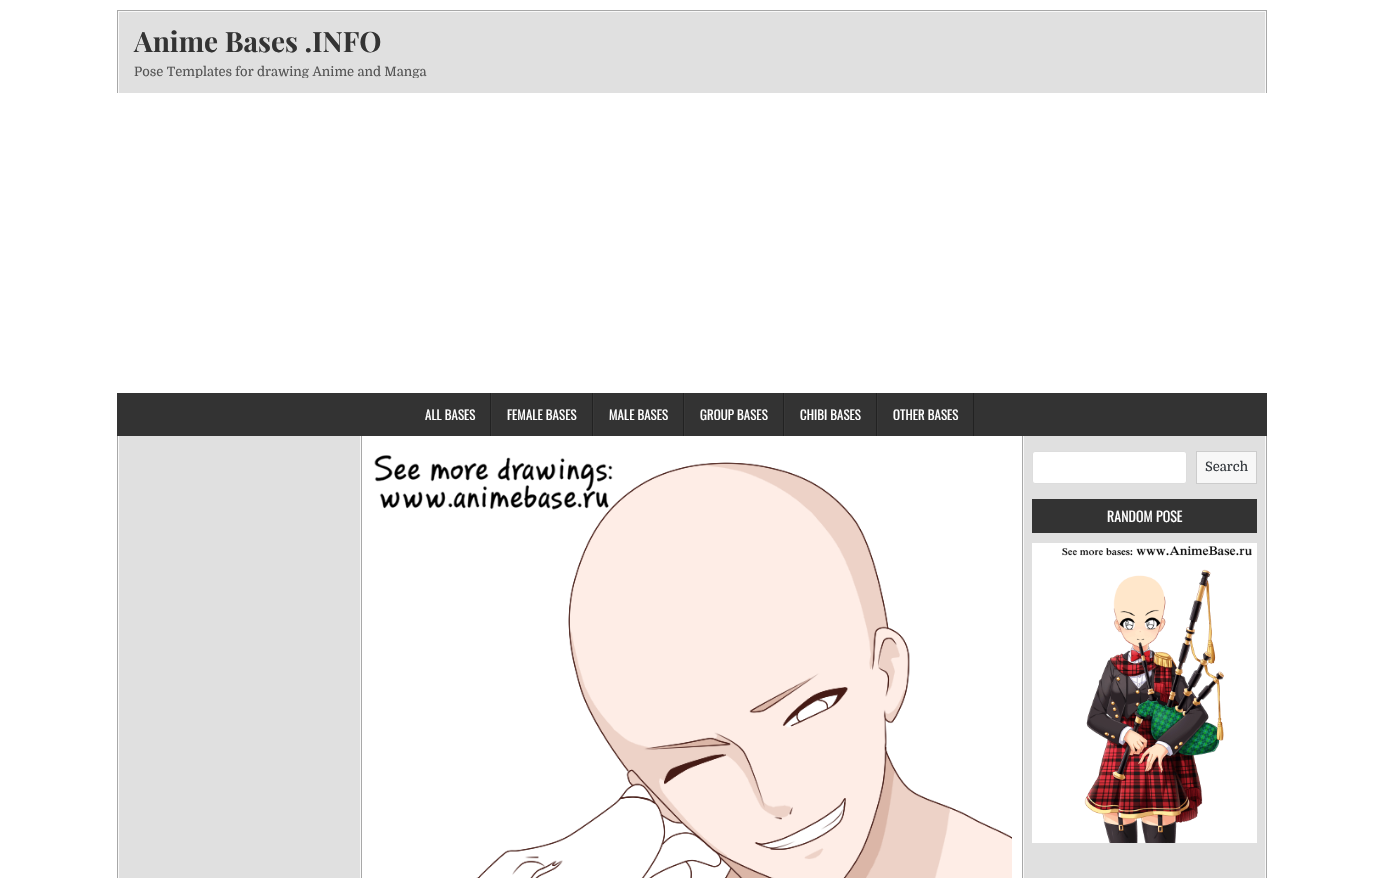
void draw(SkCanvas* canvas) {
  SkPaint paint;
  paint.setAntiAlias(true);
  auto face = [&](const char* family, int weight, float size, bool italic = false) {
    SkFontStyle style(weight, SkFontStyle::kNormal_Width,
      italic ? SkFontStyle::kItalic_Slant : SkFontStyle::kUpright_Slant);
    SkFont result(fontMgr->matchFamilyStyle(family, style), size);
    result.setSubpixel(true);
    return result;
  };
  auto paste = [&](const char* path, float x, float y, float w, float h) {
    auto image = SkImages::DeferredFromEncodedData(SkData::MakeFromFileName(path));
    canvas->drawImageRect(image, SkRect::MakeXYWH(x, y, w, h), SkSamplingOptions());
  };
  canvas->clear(0xffffffff);
  {
    const struct { float x, y, w, h; SkColor color; } items[] = {
      {119, 12, 1146, 81, 0xffe0e0e0},
      {117, 10, 1150, 1, 0xffa8a8a8},
      {1266, 10, 1, 83, 0xffa8a8a8},
      {117, 10, 1, 83, 0xffa8a8a8},
      {118, 11, 1148, 1, 0xfff9f9f9},
      {1265, 11, 1, 82, 0xfff9f9f9},
      {118, 11, 1, 82, 0xfff9f9f9},
      {117, 393, 1150, 43, 0xff333333},
      {490, 393, 1, 43, 0xff222222},
      {592, 393, 1, 43, 0xff222222},
      {491, 393, 1, 43, 0xff383838},
      {683, 393, 1, 43, 0xff222222},
      {593, 393, 1, 43, 0xff383838},
      {783, 393, 1, 43, 0xff222222},
      {684, 393, 1, 43, 0xff383838},
      {876, 393, 1, 43, 0xff222222},
      {784, 393, 1, 43, 0xff383838},
      {973, 393, 1, 43, 0xff222222},
      {877, 393, 1, 43, 0xff383838},
    };
    for (auto [x, y, w, h, color] : items) {
      paint.setColor(color);
      canvas->drawRect(SkRect::MakeXYWH(x, y, w, h), paint);
    }
  }
  paste("img/1.png", 117, 436, 1150, 442);
  paste("img/2.png", 374, 455, 638, 423);
  paint.setColor(0xffffffff);
  canvas->drawRoundRect(SkRect::MakeXYWH(1032.5f, 451.5f, 154, 32), 2.5f, 2.5f, paint);
  paint.setStroke(true);
  paint.setStrokeWidth(1);
  paint.setColor(0xffdddddd);
  canvas->drawRoundRect(SkRect::MakeXYWH(1032.5f, 451.5f, 154, 32), 2.5f, 2.5f, paint);
  paint.setStroke(false);
  paint.setColor(0xfff7f7f7);
  canvas->drawRect(SkRect::MakeXYWH(1196.5f, 451.5f, 60, 32), paint);
  paint.setStroke(true);
  paint.setColor(0xffcccccc);
  canvas->drawRect(SkRect::MakeXYWH(1196.5f, 451.5f, 60, 32), paint);
  paint.setStroke(false);
  paint.setColor(0xff333333);
  canvas->drawRect(SkRect::MakeXYWH(1032, 499, 225, 34), paint);
  paste("img/3.png", 1032, 543, 225, 300);
  auto f0 = face("Playfair Display", 700, 28);
  canvas->drawString("Anime Bases .INFO", 134, 52, f0, paint);
  canvas->save();
  canvas->clipRect(SkRect::MakeXYWH(119, 27, 308, 51));
  auto f1 = face("Domine", 400, 13);
  paint.setColor(0xff555555);
  canvas->drawString("Pose Templates for drawing Anime and Manga", 134, 76, f1, paint);
  canvas->restore();
  auto f2 = face("Oswald", 400, 13);
  paint.setColor(0xffffffff);
  {
    const struct { const char* s; float x, y; } items[] = {
      {"ALL BASES", 425, 420},
      {"FEMALE BASES", 507, 420},
      {"MALE BASES", 609, 420},
      {"GROUP BASES", 700, 420},
      {"CHIBI BASES", 800, 420},
      {"OTHER BASES", 893, 420},
    };
    for (auto [s, x, y] : items) {
      canvas->drawString(s, x, y, f2, paint);
    }
  }
  paint.setColor(0xff32373c);
  canvas->drawString("Search", 1205, 471, f1, paint);
  auto f3 = face("Oswald", 400, 14);
  paint.setColor(0xffffffff);
  canvas->drawString("RANDOM POSE", 1107, 522, f3, paint);
}
